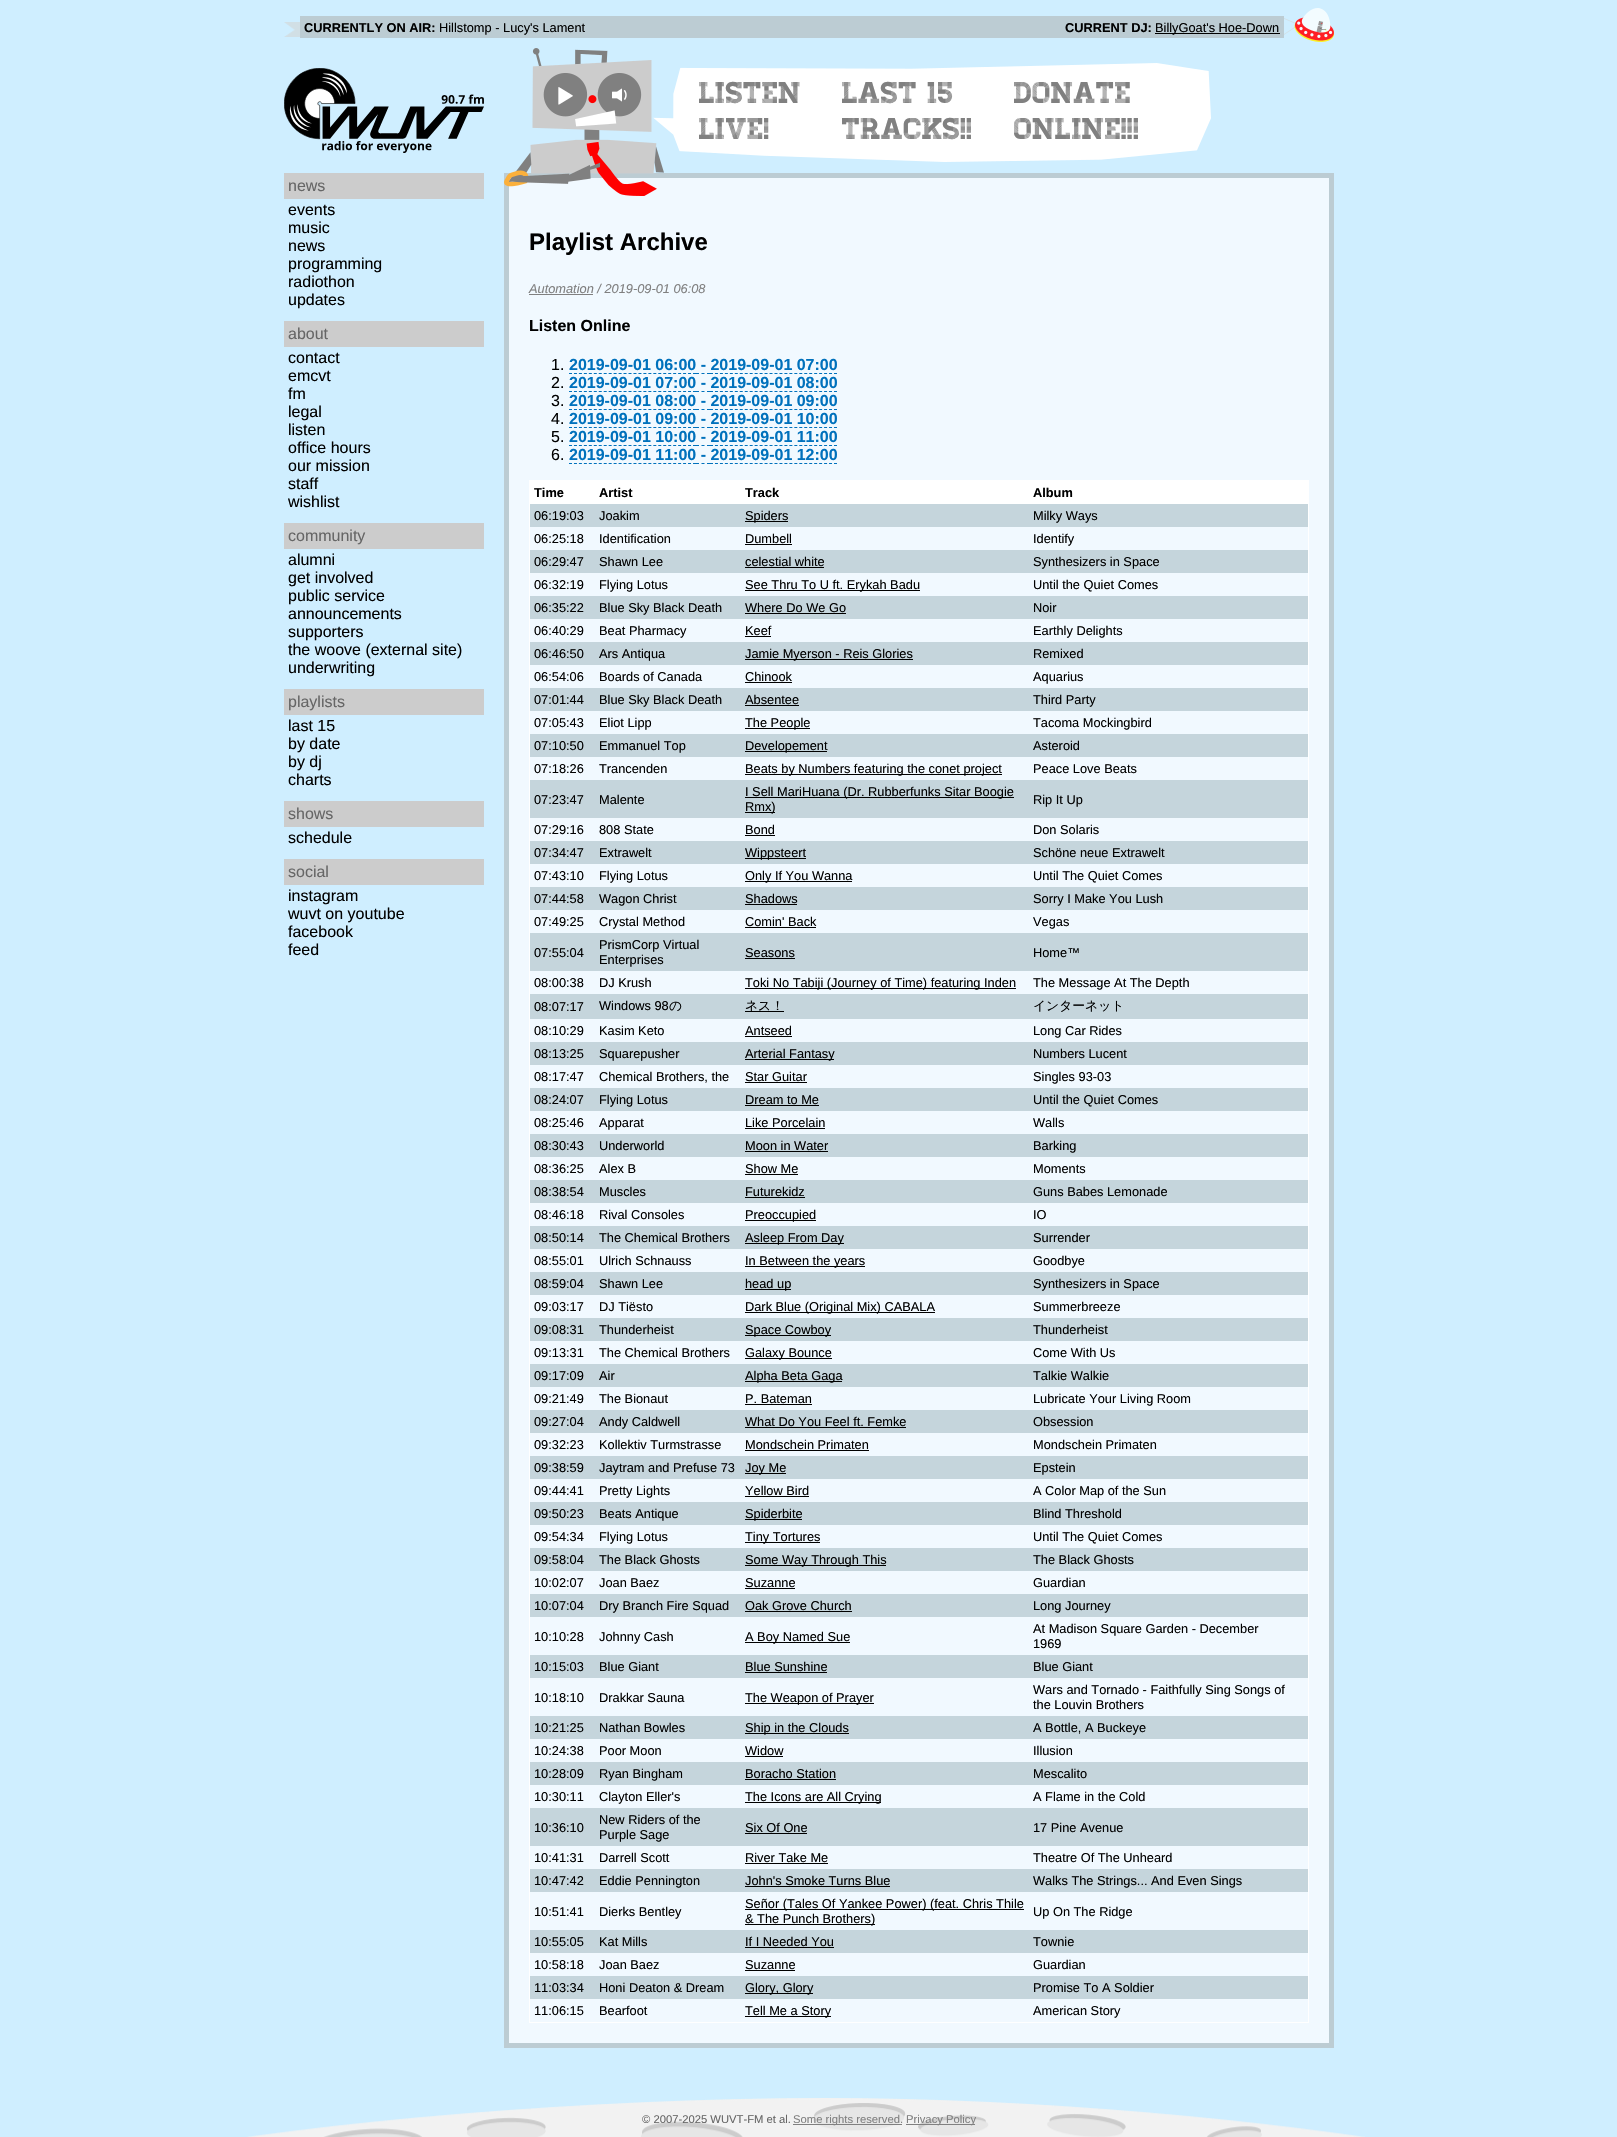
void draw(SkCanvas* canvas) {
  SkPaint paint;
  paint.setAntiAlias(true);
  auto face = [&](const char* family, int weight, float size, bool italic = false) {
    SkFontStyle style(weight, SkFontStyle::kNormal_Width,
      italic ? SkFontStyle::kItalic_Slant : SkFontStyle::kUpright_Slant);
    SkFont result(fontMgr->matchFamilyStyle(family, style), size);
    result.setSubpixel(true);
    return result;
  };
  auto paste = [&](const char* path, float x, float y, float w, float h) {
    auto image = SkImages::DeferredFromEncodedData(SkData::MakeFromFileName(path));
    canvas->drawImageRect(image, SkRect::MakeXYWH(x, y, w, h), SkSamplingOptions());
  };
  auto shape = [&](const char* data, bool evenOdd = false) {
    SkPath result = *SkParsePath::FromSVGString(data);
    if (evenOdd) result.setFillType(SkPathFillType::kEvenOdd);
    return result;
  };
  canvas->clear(0xffcfeeff);
  paste("img/1.png", 247, 2098, 1118, 39);
  paste("img/2.png", 284, 8, 1050, 34);
  paint.setColor(0xffbcccd3);
  canvas->drawRect(SkRect::MakeXYWH(300, 16, 984, 22), paint);
  paint.setColor(0xff000000);
  canvas->drawRect(SkRect::MakeXYWH(1155, 33, 125, 1), paint);
  paste("img/3.png", 284, 68, 200, 85);
  paste("img/7.png", 653, 63, 558, 99);
  paint.setColor(0xfff1f9ff);
  canvas->drawRect(SkRect::MakeXYWH(506.5f, 175.5f, 825, 1870), paint);
  paint.setStroke(true);
  paint.setStrokeWidth(5);
  paint.setColor(0xffbcccd3);
  canvas->drawRect(SkRect::MakeXYWH(506.5f, 175.5f, 825, 1870), paint);
  paste("img/4.png", 504, 48, 160, 148);
  paste("img/5.png", 558, 87, 15, 18);
  paste("img/6.png", 612, 88, 15, 14);
  paint.setStroke(false);
  {
    const struct { float x, y, w, h; SkColor color; } items[] = {
      {284, 173, 200, 26, 0xffcccccc},
      {284, 321, 200, 26, 0xffcccccc},
      {284, 523, 200, 26, 0xffcccccc},
      {284, 689, 200, 26, 0xffcccccc},
      {284, 801, 200, 26, 0xffcccccc},
      {284, 859, 200, 26, 0xffcccccc},
      {529, 294, 64, 1, 0xff808080},
    };
    for (auto [x, y, w, h, color] : items) {
      paint.setColor(color);
      canvas->drawRect(SkRect::MakeXYWH(x, y, w, h), paint);
    }
  }
  paint.setStroke(true);
  paint.setStrokeWidth(1);
  paint.setColor(0xff0071bc);
  paint.setPathEffect(SkDashPathEffect::Make({{3, 1.96f}}, 0));
  canvas->drawPath(shape("M569 373.5H696"), paint);
  paint.setPathEffect(nullptr);
  canvas->drawPath(shape("M696 373.5H699M701.5 373.5H704.5M707 373.5H710"), paint);
  paint.setPathEffect(SkDashPathEffect::Make({{3, 1.96f}}, 0));
  canvas->drawPath(shape("M710 373.5H837"), paint);
  paint.setPathEffect(nullptr);
  paint.setPathEffect(SkDashPathEffect::Make({{3, 1.96f}}, 0));
  canvas->drawPath(shape("M569 391.5H696"), paint);
  paint.setPathEffect(nullptr);
  canvas->drawPath(shape("M696 391.5H699M701.5 391.5H704.5M707 391.5H710"), paint);
  paint.setPathEffect(SkDashPathEffect::Make({{3, 1.96f}}, 0));
  canvas->drawPath(shape("M710 391.5H837"), paint);
  paint.setPathEffect(nullptr);
  paint.setPathEffect(SkDashPathEffect::Make({{3, 1.96f}}, 0));
  canvas->drawPath(shape("M569 409.5H696"), paint);
  paint.setPathEffect(nullptr);
  canvas->drawPath(shape("M696 409.5H699M701.5 409.5H704.5M707 409.5H710"), paint);
  paint.setPathEffect(SkDashPathEffect::Make({{3, 1.96f}}, 0));
  canvas->drawPath(shape("M710 409.5H837"), paint);
  paint.setPathEffect(nullptr);
  paint.setPathEffect(SkDashPathEffect::Make({{3, 1.96f}}, 0));
  canvas->drawPath(shape("M569 427.5H696"), paint);
  paint.setPathEffect(nullptr);
  canvas->drawPath(shape("M696 427.5H699M701.5 427.5H704.5M707 427.5H710"), paint);
  paint.setPathEffect(SkDashPathEffect::Make({{3, 1.96f}}, 0));
  canvas->drawPath(shape("M710 427.5H837"), paint);
  paint.setPathEffect(nullptr);
  paint.setPathEffect(SkDashPathEffect::Make({{3, 1.96f}}, 0));
  canvas->drawPath(shape("M569 445.5H696"), paint);
  paint.setPathEffect(nullptr);
  canvas->drawPath(shape("M696 445.5H699M701.5 445.5H704.5M707 445.5H710"), paint);
  paint.setPathEffect(SkDashPathEffect::Make({{3, 1.96f}}, 0));
  canvas->drawPath(shape("M710 445.5H837"), paint);
  paint.setPathEffect(nullptr);
  paint.setPathEffect(SkDashPathEffect::Make({{3, 1.96f}}, 0));
  canvas->drawPath(shape("M569 463.5H696"), paint);
  paint.setPathEffect(nullptr);
  canvas->drawPath(shape("M696 463.5H699M701.5 463.5H704.5M707 463.5H710"), paint);
  paint.setPathEffect(SkDashPathEffect::Make({{3, 1.96f}}, 0));
  canvas->drawPath(shape("M710 463.5H837"), paint);
  paint.setPathEffect(nullptr);
  paint.setStroke(false);
  {
    const struct { float x, y, w, h; SkColor color; } items[] = {
      {529, 480, 780, 1, 0xffffffff},
      {1308, 480, 1, 1543, 0xffffffff},
      {529, 2022, 780, 1, 0xffffffff},
      {529, 480, 1, 1543, 0xffffffff},
      {530, 481, 778, 23, 0xffffffff},
      {530, 504, 778, 23, 0xffc5d5dc},
      {745, 521, 43, 1, 0xff000000},
      {745, 544, 47, 1, 0xff000000},
      {530, 550, 778, 23, 0xffc5d5dc},
      {745, 567, 79, 1, 0xff000000},
      {745, 590, 175, 1, 0xff000000},
      {530, 596, 778, 23, 0xffc5d5dc},
      {745, 613, 101, 1, 0xff000000},
      {745, 636, 26, 1, 0xff000000},
      {530, 642, 778, 23, 0xffc5d5dc},
      {745, 659, 168, 1, 0xff000000},
      {745, 682, 47, 1, 0xff000000},
      {530, 688, 778, 23, 0xffc5d5dc},
      {745, 705, 54, 1, 0xff000000},
      {745, 728, 65, 1, 0xff000000},
      {530, 734, 778, 23, 0xffc5d5dc},
      {745, 751, 82, 1, 0xff000000},
      {745, 774, 257, 1, 0xff000000},
      {530, 780, 778, 38, 0xffc5d5dc},
      {745, 797, 269, 1, 0xff000000},
      {745, 812, 30, 1, 0xff000000},
      {745, 835, 30, 1, 0xff000000},
      {530, 841, 778, 23, 0xffc5d5dc},
      {745, 858, 61, 1, 0xff000000},
      {745, 881, 107, 1, 0xff000000},
      {530, 887, 778, 23, 0xffc5d5dc},
      {745, 904, 52, 1, 0xff000000},
      {745, 927, 71, 1, 0xff000000},
      {530, 933, 778, 38, 0xffc5d5dc},
      {745, 958, 50, 1, 0xff000000},
      {745, 988, 271, 1, 0xff000000},
      {530, 994, 778, 25, 0xffc5d5dc},
      {745, 1011, 39, 1, 0xff000000},
      {745, 1036, 47, 1, 0xff000000},
      {530, 1042, 778, 23, 0xffc5d5dc},
      {745, 1059, 89, 1, 0xff000000},
      {745, 1082, 62, 1, 0xff000000},
      {530, 1088, 778, 23, 0xffc5d5dc},
      {745, 1105, 74, 1, 0xff000000},
      {745, 1128, 80, 1, 0xff000000},
      {530, 1134, 778, 23, 0xffc5d5dc},
      {745, 1151, 83, 1, 0xff000000},
      {745, 1174, 53, 1, 0xff000000},
      {530, 1180, 778, 23, 0xffc5d5dc},
      {745, 1197, 60, 1, 0xff000000},
      {745, 1220, 71, 1, 0xff000000},
      {530, 1226, 778, 23, 0xffc5d5dc},
      {745, 1243, 99, 1, 0xff000000},
      {745, 1266, 120, 1, 0xff000000},
      {530, 1272, 778, 23, 0xffc5d5dc},
      {745, 1289, 46, 1, 0xff000000},
      {745, 1312, 190, 1, 0xff000000},
      {530, 1318, 778, 23, 0xffc5d5dc},
      {745, 1335, 86, 1, 0xff000000},
      {745, 1358, 87, 1, 0xff000000},
      {530, 1364, 778, 23, 0xffc5d5dc},
      {745, 1381, 97, 1, 0xff000000},
      {745, 1404, 67, 1, 0xff000000},
      {530, 1410, 778, 23, 0xffc5d5dc},
      {745, 1427, 161, 1, 0xff000000},
      {745, 1450, 124, 1, 0xff000000},
      {530, 1456, 778, 23, 0xffc5d5dc},
      {745, 1473, 41, 1, 0xff000000},
      {745, 1496, 64, 1, 0xff000000},
      {530, 1502, 778, 23, 0xffc5d5dc},
      {745, 1519, 57, 1, 0xff000000},
      {745, 1542, 75, 1, 0xff000000},
      {530, 1548, 778, 23, 0xffc5d5dc},
      {745, 1565, 141, 1, 0xff000000},
      {745, 1588, 50, 1, 0xff000000},
      {530, 1594, 778, 23, 0xffc5d5dc},
      {745, 1611, 107, 1, 0xff000000},
      {745, 1642, 105, 1, 0xff000000},
      {530, 1655, 778, 23, 0xffc5d5dc},
      {745, 1672, 82, 1, 0xff000000},
      {745, 1703, 129, 1, 0xff000000},
      {530, 1716, 778, 23, 0xffc5d5dc},
      {745, 1733, 104, 1, 0xff000000},
      {745, 1756, 38, 1, 0xff000000},
      {530, 1762, 778, 23, 0xffc5d5dc},
      {745, 1779, 91, 1, 0xff000000},
      {745, 1802, 136, 1, 0xff000000},
      {530, 1808, 778, 38, 0xffc5d5dc},
      {745, 1833, 62, 1, 0xff000000},
      {745, 1863, 83, 1, 0xff000000},
      {530, 1869, 778, 23, 0xffc5d5dc},
      {745, 1886, 145, 1, 0xff000000},
      {745, 1909, 279, 1, 0xff000000},
      {745, 1924, 130, 1, 0xff000000},
      {530, 1930, 778, 23, 0xffc5d5dc},
      {745, 1947, 89, 1, 0xff000000},
      {745, 1970, 50, 1, 0xff000000},
      {530, 1976, 778, 23, 0xffc5d5dc},
      {745, 1993, 68, 1, 0xff000000},
      {745, 2016, 86, 1, 0xff000000},
      {793, 2124, 109, 1, 0xff808080},
      {906, 2124, 69, 1, 0xff808080},
    };
    for (auto [x, y, w, h, color] : items) {
      paint.setColor(color);
      canvas->drawRect(SkRect::MakeXYWH(x, y, w, h), paint);
    }
  }
  auto f0 = face("Liberation Sans", 700, 12.8f);
  paint.setColor(0xff000000);
  canvas->drawString("CURRENTLY ON AIR:", 304, 32, f0, paint);
  auto f1 = face("Liberation Sans", 400, 12.8f);
  canvas->drawString("Hillstomp - Lucy's Lament", 439, 32, f1, paint);
  canvas->drawString("CURRENT DJ:", 1065, 32, f0, paint);
  canvas->drawString("BillyGoat's Hoe-Down", 1155, 32, f1, paint);
  auto f2 = face("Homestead", 400, 30);
  paint.setColor(0xff808080);
  {
    const struct { const char* s; float x, y; } items[] = {
      {"LISTEN", 699, 103},
      {"LIVE!", 699, 139},
      {"LAST 15", 842, 103},
      {"TRACKS!!", 842, 139},
      {"DONATE", 1014, 103},
      {"ONLINE!!!", 1014, 139},
    };
    for (auto [s, x, y] : items) {
      canvas->drawString(s, x, y, f2, paint);
    }
  }
  auto f3 = face("Liberation Sans", 400, 16);
  paint.setColor(0xff666666);
  canvas->drawString("news", 288, 191, f3, paint);
  paint.setColor(0xff000000);
  {
    const struct { const char* s; float x, y; } items[] = {
      {"events", 288, 215},
      {"music", 288, 233},
      {"news", 288, 251},
      {"programming", 288, 269},
      {"radiothon", 288, 287},
      {"updates", 288, 305},
    };
    for (auto [s, x, y] : items) {
      canvas->drawString(s, x, y, f3, paint);
    }
  }
  paint.setColor(0xff666666);
  canvas->drawString("about", 288, 339, f3, paint);
  paint.setColor(0xff000000);
  {
    const struct { const char* s; float x, y; } items[] = {
      {"contact", 288, 363},
      {"emcvt", 288, 381},
      {"fm", 288, 399},
      {"legal", 288, 417},
      {"listen", 288, 435},
      {"office hours", 288, 453},
      {"our mission", 288, 471},
      {"staff", 288, 489},
      {"wishlist", 288, 507},
    };
    for (auto [s, x, y] : items) {
      canvas->drawString(s, x, y, f3, paint);
    }
  }
  paint.setColor(0xff666666);
  canvas->drawString("community", 288, 541, f3, paint);
  paint.setColor(0xff000000);
  {
    const struct { const char* s; float x, y; } items[] = {
      {"alumni", 288, 565},
      {"get involved", 288, 583},
      {"public service", 288, 601},
      {"announcements", 288, 619},
      {"supporters", 288, 637},
      {"the woove (external site)", 288, 655},
      {"underwriting", 288, 673},
    };
    for (auto [s, x, y] : items) {
      canvas->drawString(s, x, y, f3, paint);
    }
  }
  paint.setColor(0xff666666);
  canvas->drawString("playlists", 288, 707, f3, paint);
  paint.setColor(0xff000000);
  {
    const struct { const char* s; float x, y; } items[] = {
      {"last 15", 288, 731},
      {"by date", 288, 749},
      {"by dj", 288, 767},
      {"charts", 288, 785},
    };
    for (auto [s, x, y] : items) {
      canvas->drawString(s, x, y, f3, paint);
    }
  }
  paint.setColor(0xff666666);
  canvas->drawString("shows", 288, 819, f3, paint);
  paint.setColor(0xff000000);
  canvas->drawString("schedule", 288, 843, f3, paint);
  paint.setColor(0xff666666);
  canvas->drawString("social", 288, 877, f3, paint);
  paint.setColor(0xff000000);
  {
    const struct { const char* s; float x, y; } items[] = {
      {"instagram", 288, 901},
      {"wuvt on youtube", 288, 919},
      {"facebook", 288, 937},
      {"feed", 288, 955},
    };
    for (auto [s, x, y] : items) {
      canvas->drawString(s, x, y, f3, paint);
    }
  }
  auto f4 = face("Liberation Sans", 700, 24);
  canvas->drawString("Playlist Archive", 529, 250, f4, paint);
  auto f5 = face("Liberation Sans", 400, 12.8f, true);
  paint.setColor(0xff808080);
  canvas->drawString("Automation / 2019-09-01 06:08", 529, 293, f5, paint);
  auto f6 = face("Liberation Sans", 700, 16);
  paint.setColor(0xff000000);
  canvas->drawString("Listen Online", 529, 331, f6, paint);
  canvas->drawString("1.", 551, 370, f3, paint);
  paint.setColor(0xff0071bc);
  canvas->drawString("2019-09-01 06:00 - 2019-09-01 07:00", 569, 370, f6, paint);
  paint.setColor(0xff000000);
  canvas->drawString("2.", 551, 388, f3, paint);
  paint.setColor(0xff0071bc);
  canvas->drawString("2019-09-01 07:00 - 2019-09-01 08:00", 569, 388, f6, paint);
  paint.setColor(0xff000000);
  canvas->drawString("3.", 551, 406, f3, paint);
  paint.setColor(0xff0071bc);
  canvas->drawString("2019-09-01 08:00 - 2019-09-01 09:00", 569, 406, f6, paint);
  paint.setColor(0xff000000);
  canvas->drawString("4.", 551, 424, f3, paint);
  paint.setColor(0xff0071bc);
  canvas->drawString("2019-09-01 09:00 - 2019-09-01 10:00", 569, 424, f6, paint);
  paint.setColor(0xff000000);
  canvas->drawString("5.", 551, 442, f3, paint);
  paint.setColor(0xff0071bc);
  canvas->drawString("2019-09-01 10:00 - 2019-09-01 11:00", 569, 442, f6, paint);
  paint.setColor(0xff000000);
  canvas->drawString("6.", 551, 460, f3, paint);
  paint.setColor(0xff0071bc);
  canvas->drawString("2019-09-01 11:00 - 2019-09-01 12:00", 569, 460, f6, paint);
  paint.setColor(0xff000000);
  {
    const struct { const char* s; float x, y; } items[] = {
      {"Time", 534, 497},
      {"Artist", 599, 497},
      {"Track", 745, 497},
      {"Album", 1033, 497},
    };
    for (auto [s, x, y] : items) {
      canvas->drawString(s, x, y, f0, paint);
    }
  }
  {
    const struct { const char* s; float x, y; } items[] = {
      {"06:19:03", 534, 520},
      {"Joakim", 599, 520},
      {"Spiders", 745, 520},
      {"Milky Ways", 1033, 520},
      {"06:25:18", 534, 543},
      {"Identification", 599, 543},
      {"Dumbell", 745, 543},
      {"Identify", 1033, 543},
      {"06:29:47", 534, 566},
      {"Shawn Lee", 599, 566},
      {"celestial white", 745, 566},
      {"Synthesizers in Space", 1033, 566},
      {"06:32:19", 534, 589},
      {"Flying Lotus", 599, 589},
      {"See Thru To U ft. Erykah Badu", 745, 589},
      {"Until the Quiet Comes", 1033, 589},
      {"06:35:22", 534, 612},
      {"Blue Sky Black Death", 599, 612},
      {"Where Do We Go", 745, 612},
      {"Noir", 1033, 612},
      {"06:40:29", 534, 635},
      {"Beat Pharmacy", 599, 635},
      {"Keef", 745, 635},
      {"Earthly Delights", 1033, 635},
      {"06:46:50", 534, 658},
      {"Ars Antiqua", 599, 658},
      {"Jamie Myerson - Reis Glories", 745, 658},
      {"Remixed", 1033, 658},
      {"06:54:06", 534, 681},
      {"Boards of Canada", 599, 681},
      {"Chinook", 745, 681},
      {"Aquarius", 1033, 681},
      {"07:01:44", 534, 704},
      {"Blue Sky Black Death", 599, 704},
      {"Absentee", 745, 704},
      {"Third Party", 1033, 704},
      {"07:05:43", 534, 727},
      {"Eliot Lipp", 599, 727},
      {"The People", 745, 727},
      {"Tacoma Mockingbird", 1033, 727},
      {"07:10:50", 534, 750},
      {"Emmanuel Top", 599, 750},
      {"Developement", 745, 750},
      {"Asteroid", 1033, 750},
      {"07:18:26", 534, 773},
      {"Trancenden", 599, 773},
      {"Beats by Numbers featuring the conet project", 745, 773},
      {"Peace Love Beats", 1033, 773},
      {"07:23:47", 534, 804},
      {"Malente", 599, 804},
      {"I Sell MariHuana (Dr. Rubberfunks Sitar Boogie", 745, 796},
      {"Rmx)", 745, 811},
      {"Rip It Up", 1033, 804},
      {"07:29:16", 534, 834},
      {"808 State", 599, 834},
      {"Bond", 745, 834},
      {"Don Solaris", 1033, 834},
      {"07:34:47", 534, 857},
      {"Extrawelt", 599, 857},
      {"Wippsteert", 745, 857},
      {"Schöne neue Extrawelt", 1033, 857},
      {"07:43:10", 534, 880},
      {"Flying Lotus", 599, 880},
      {"Only If You Wanna", 745, 880},
      {"Until The Quiet Comes", 1033, 880},
      {"07:44:58", 534, 903},
      {"Wagon Christ", 599, 903},
      {"Shadows", 745, 903},
      {"Sorry I Make You Lush", 1033, 903},
      {"07:49:25", 534, 926},
      {"Crystal Method", 599, 926},
      {"Comin' Back", 745, 926},
      {"Vegas", 1033, 926},
      {"07:55:04", 534, 957},
      {"PrismCorp Virtual", 599, 949},
      {"Enterprises", 599, 964},
      {"Seasons", 745, 957},
      {"Home™", 1033, 957},
      {"08:00:38", 534, 987},
      {"DJ Krush", 599, 987},
      {"Toki No Tabiji (Journey of Time) featuring Inden", 745, 987},
      {"The Message At The Depth", 1033, 987},
      {"08:07:17", 534, 1011},
      {"Windows 98", 599, 1010},
    };
    for (auto [s, x, y] : items) {
      canvas->drawString(s, x, y, f1, paint);
    }
  }
  auto f7 = face("WenQuanYi Zen Hei", 500, 12.8f);
  {
    const struct { const char* s; float x, y; } items[] = {
      {"の", 669, 1010},
      {"ネス！", 745, 1010},
      {"インターネット", 1033, 1010},
    };
    for (auto [s, x, y] : items) {
      canvas->drawString(s, x, y, f7, paint);
    }
  }
  {
    const struct { const char* s; float x, y; } items[] = {
      {"08:10:29", 534, 1035},
      {"Kasim Keto", 599, 1035},
      {"Antseed", 745, 1035},
      {"Long Car Rides", 1033, 1035},
      {"08:13:25", 534, 1058},
      {"Squarepusher", 599, 1058},
      {"Arterial Fantasy", 745, 1058},
      {"Numbers Lucent", 1033, 1058},
      {"08:17:47", 534, 1081},
      {"Chemical Brothers, the", 599, 1081},
      {"Star Guitar", 745, 1081},
      {"Singles 93-03", 1033, 1081},
      {"08:24:07", 534, 1104},
      {"Flying Lotus", 599, 1104},
      {"Dream to Me", 745, 1104},
      {"Until the Quiet Comes", 1033, 1104},
      {"08:25:46", 534, 1127},
      {"Apparat", 599, 1127},
      {"Like Porcelain", 745, 1127},
      {"Walls", 1033, 1127},
      {"08:30:43", 534, 1150},
      {"Underworld", 599, 1150},
      {"Moon in Water", 745, 1150},
      {"Barking", 1033, 1150},
      {"08:36:25", 534, 1173},
      {"Alex B", 599, 1173},
      {"Show Me", 745, 1173},
      {"Moments", 1033, 1173},
      {"08:38:54", 534, 1196},
      {"Muscles", 599, 1196},
      {"Futurekidz", 745, 1196},
      {"Guns Babes Lemonade", 1033, 1196},
      {"08:46:18", 534, 1219},
      {"Rival Consoles", 599, 1219},
      {"Preoccupied", 745, 1219},
      {"IO", 1033, 1219},
      {"08:50:14", 534, 1242},
      {"The Chemical Brothers", 599, 1242},
      {"Asleep From Day", 745, 1242},
      {"Surrender", 1033, 1242},
      {"08:55:01", 534, 1265},
      {"Ulrich Schnauss", 599, 1265},
      {"In Between the years", 745, 1265},
      {"Goodbye", 1033, 1265},
      {"08:59:04", 534, 1288},
      {"Shawn Lee", 599, 1288},
      {"head up", 745, 1288},
      {"Synthesizers in Space", 1033, 1288},
      {"09:03:17", 534, 1311},
      {"DJ Tiësto", 599, 1311},
      {"Dark Blue (Original Mix) CABALA", 745, 1311},
      {"Summerbreeze", 1033, 1311},
      {"09:08:31", 534, 1334},
      {"Thunderheist", 599, 1334},
      {"Space Cowboy", 745, 1334},
      {"Thunderheist", 1033, 1334},
      {"09:13:31", 534, 1357},
      {"The Chemical Brothers", 599, 1357},
      {"Galaxy Bounce", 745, 1357},
      {"Come With Us", 1033, 1357},
      {"09:17:09", 534, 1380},
      {"Air", 599, 1380},
      {"Alpha Beta Gaga", 745, 1380},
      {"Talkie Walkie", 1033, 1380},
      {"09:21:49", 534, 1403},
      {"The Bionaut", 599, 1403},
      {"P. Bateman", 745, 1403},
      {"Lubricate Your Living Room", 1033, 1403},
      {"09:27:04", 534, 1426},
      {"Andy Caldwell", 599, 1426},
      {"What Do You Feel ft. Femke", 745, 1426},
      {"Obsession", 1033, 1426},
      {"09:32:23", 534, 1449},
      {"Kollektiv Turmstrasse", 599, 1449},
      {"Mondschein Primaten", 745, 1449},
      {"Mondschein Primaten", 1033, 1449},
      {"09:38:59", 534, 1472},
      {"Jaytram and Prefuse 73", 599, 1472},
      {"Joy Me", 745, 1472},
      {"Epstein", 1033, 1472},
      {"09:44:41", 534, 1495},
      {"Pretty Lights", 599, 1495},
      {"Yellow Bird", 745, 1495},
      {"A Color Map of the Sun", 1033, 1495},
      {"09:50:23", 534, 1518},
      {"Beats Antique", 599, 1518},
      {"Spiderbite", 745, 1518},
      {"Blind Threshold", 1033, 1518},
      {"09:54:34", 534, 1541},
      {"Flying Lotus", 599, 1541},
      {"Tiny Tortures", 745, 1541},
      {"Until The Quiet Comes", 1033, 1541},
      {"09:58:04", 534, 1564},
      {"The Black Ghosts", 599, 1564},
      {"Some Way Through This", 745, 1564},
      {"The Black Ghosts", 1033, 1564},
      {"10:02:07", 534, 1587},
      {"Joan Baez", 599, 1587},
      {"Suzanne", 745, 1587},
      {"Guardian", 1033, 1587},
      {"10:07:04", 534, 1610},
      {"Dry Branch Fire Squad", 599, 1610},
      {"Oak Grove Church", 745, 1610},
      {"Long Journey", 1033, 1610},
      {"10:10:28", 534, 1641},
      {"Johnny Cash", 599, 1641},
      {"A Boy Named Sue", 745, 1641},
      {"At Madison Square Garden - December", 1033, 1633},
      {"1969", 1033, 1648},
      {"10:15:03", 534, 1671},
      {"Blue Giant", 599, 1671},
      {"Blue Sunshine", 745, 1671},
      {"Blue Giant", 1033, 1671},
      {"10:18:10", 534, 1702},
      {"Drakkar Sauna", 599, 1702},
      {"The Weapon of Prayer", 745, 1702},
      {"Wars and Tornado - Faithfully Sing Songs of", 1033, 1694},
      {"the Louvin Brothers", 1033, 1709},
      {"10:21:25", 534, 1732},
      {"Nathan Bowles", 599, 1732},
      {"Ship in the Clouds", 745, 1732},
      {"A Bottle, A Buckeye", 1033, 1732},
      {"10:24:38", 534, 1755},
      {"Poor Moon", 599, 1755},
      {"Widow", 745, 1755},
      {"Illusion", 1033, 1755},
      {"10:28:09", 534, 1778},
      {"Ryan Bingham", 599, 1778},
      {"Boracho Station", 745, 1778},
      {"Mescalito", 1033, 1778},
      {"10:30:11", 534, 1801},
      {"Clayton Eller's", 599, 1801},
      {"The Icons are All Crying", 745, 1801},
      {"A Flame in the Cold", 1033, 1801},
      {"10:36:10", 534, 1832},
      {"New Riders of the", 599, 1824},
      {"Purple Sage", 599, 1839},
      {"Six Of One", 745, 1832},
      {"17 Pine Avenue", 1033, 1832},
      {"10:41:31", 534, 1862},
      {"Darrell Scott", 599, 1862},
      {"River Take Me", 745, 1862},
      {"Theatre Of The Unheard", 1033, 1862},
      {"10:47:42", 534, 1885},
      {"Eddie Pennington", 599, 1885},
      {"John's Smoke Turns Blue", 745, 1885},
      {"Walks The Strings... And Even Sings", 1033, 1885},
      {"10:51:41", 534, 1916},
      {"Dierks Bentley", 599, 1916},
      {"Señor (Tales Of Yankee Power) (feat. Chris Thile", 745, 1908},
      {"& The Punch Brothers)", 745, 1923},
      {"Up On The Ridge", 1033, 1916},
      {"10:55:05", 534, 1946},
      {"Kat Mills", 599, 1946},
      {"If I Needed You", 745, 1946},
      {"Townie", 1033, 1946},
      {"10:58:18", 534, 1969},
      {"Joan Baez", 599, 1969},
      {"Suzanne", 745, 1969},
      {"Guardian", 1033, 1969},
      {"11:03:34", 534, 1992},
      {"Honi Deaton & Dream", 599, 1992},
      {"Glory, Glory", 745, 1992},
      {"Promise To A Soldier", 1033, 1992},
      {"11:06:15", 534, 2015},
      {"Bearfoot", 599, 2015},
      {"Tell Me a Story", 745, 2015},
      {"American Story", 1033, 2015},
    };
    for (auto [s, x, y] : items) {
      canvas->drawString(s, x, y, f1, paint);
    }
  }
  auto f8 = face("Liberation Sans", 400, 11.25f);
  paint.setColor(0xff666666);
  canvas->drawString("© 2007-2025 WUVT-FM et al.", 642, 2123, f8, paint);
  paint.setColor(0xff808080);
  canvas->drawString("Some rights reserved.", 793, 2123, f8, paint);
  canvas->drawString("Privacy Policy", 906, 2123, f8, paint);
}
